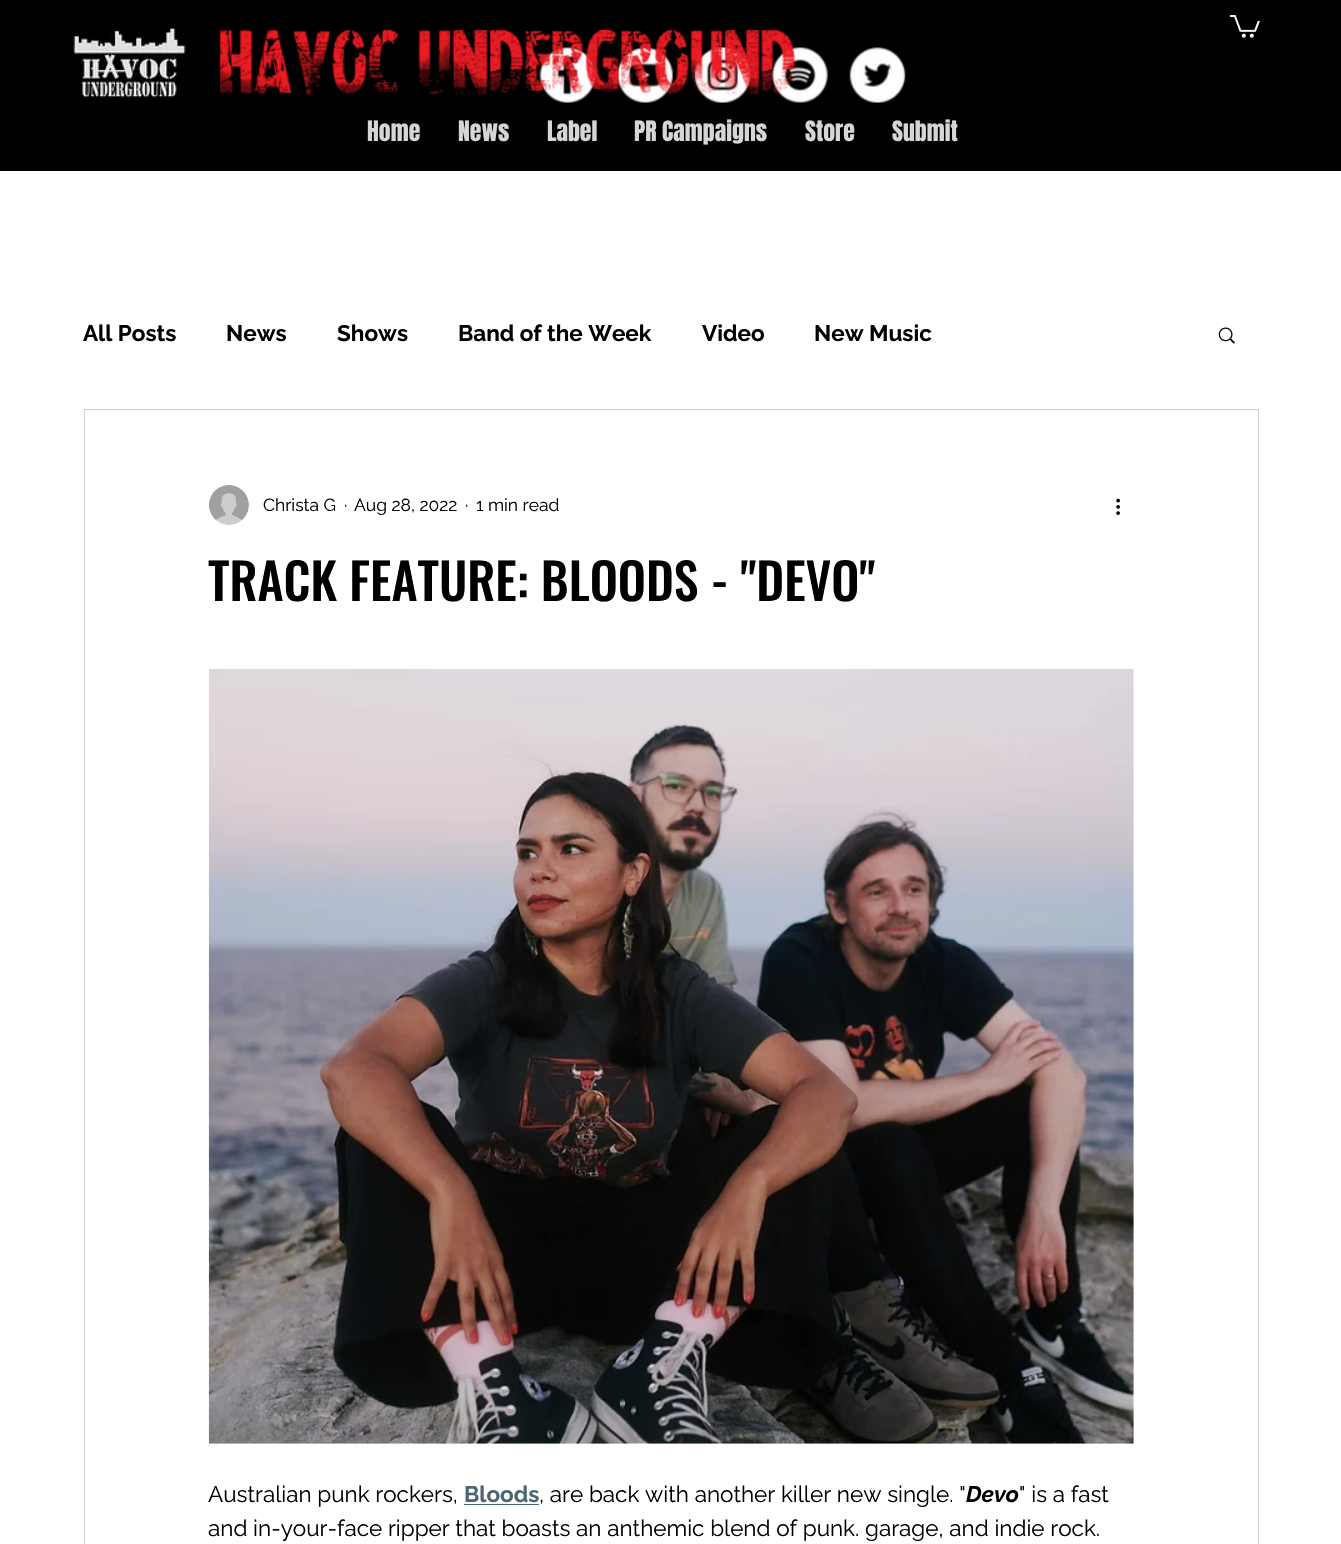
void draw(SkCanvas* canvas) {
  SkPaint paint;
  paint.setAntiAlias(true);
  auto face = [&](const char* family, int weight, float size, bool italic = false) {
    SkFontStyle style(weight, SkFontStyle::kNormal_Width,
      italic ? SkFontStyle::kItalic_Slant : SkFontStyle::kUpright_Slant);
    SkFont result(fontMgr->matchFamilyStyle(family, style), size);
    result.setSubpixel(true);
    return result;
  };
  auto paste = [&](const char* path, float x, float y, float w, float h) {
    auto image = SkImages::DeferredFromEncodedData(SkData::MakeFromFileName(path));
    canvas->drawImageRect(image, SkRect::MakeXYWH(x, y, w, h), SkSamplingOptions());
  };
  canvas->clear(0xffffffff);
  paint.setColor(0xff000000);
  canvas->drawRect(SkRect::MakeXYWH(0, 0, 1341, 171), paint);
  paste("img/1.png", 73, 27, 113, 72);
  paste("img/4.png", 539, 47, 57, 56);
  paste("img/5.png", 616, 47, 57, 56);
  paste("img/6.png", 694, 47, 57, 56);
  paste("img/7.png", 771, 47, 57, 56);
  paste("img/2.png", 219, 30, 577, 66);
  paste("img/3.png", 1230, 15, 30, 23);
  paste("img/8.png", 849, 47, 57, 56);
  paste("img/9.png", 1218, 327, 17, 17);
  paint.setStroke(true);
  paint.setStrokeWidth(1);
  paint.setColor(0xffcfcfcf);
  canvas->drawRect(SkRect::MakeXYWH(84.5f, 409.5f, 1174, 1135), paint);
  paste("img/10.png", 209, 485, 40, 40);
  paste("img/11.png", 1116, 498, 4, 17);
  paste("img/12.png", 208, 669, 926, 775);
  paint.setStroke(false);
  paint.setColor(0xff4c6474);
  canvas->drawRect(SkRect::MakeXYWH(464, 1504, 75, 1), paint);
  auto f0 = face("Anton", 400, 23.75f);
  paint.setColor(0xffd6d6d6);
  {
    const struct { const char* s; float x, y; } items[] = {
      {"Home", 367, 141},
      {"News", 458, 141},
      {"Label", 547, 141},
      {"PR Campaigns", 634, 141},
      {"Store", 805, 141},
      {"Submit", 892, 141},
    };
    for (auto [s, x, y] : items) {
      canvas->drawString(s, x, y, f0, paint);
    }
  }
  auto f1 = face("Raleway", 700, 22.5f);
  paint.setColor(0xff000000);
  {
    const struct { const char* s; float x, y; } items[] = {
      {"All Posts", 83, 341},
      {"News", 226, 341},
      {"Shows", 337, 341},
      {"Band of the Week", 458, 341},
      {"Video", 702, 341},
      {"New Music", 814, 341},
    };
    for (auto [s, x, y] : items) {
      canvas->drawString(s, x, y, f1, paint);
    }
  }
  auto f2 = face("Raleway", 400, 17.5f);
  {
    const struct { const char* s; float x, y; } items[] = {
      {"Christa G", 263, 511},
      {"·", 344, 511},
      {"Aug 28, 2022", 354, 511},
      {"·", 465, 511},
      {"1 min read", 476, 511},
    };
    for (auto [s, x, y] : items) {
      canvas->drawString(s, x, y, f2, paint);
    }
  }
  auto f3 = face("Oswald", 500, 50);
  canvas->drawString("TRACK FEATURE: BLOODS - \"DEVO\"", 208, 601, f3, paint);
  auto f4 = face("Raleway", 400, 22.5f);
  canvas->drawString("Australian punk rockers,", 208, 1502, f4, paint);
  paint.setColor(0xff4c6474);
  canvas->drawString("Bloods", 464, 1502, f1, paint);
  paint.setColor(0xff000000);
  canvas->drawString(", are back with another killer new single. \"", 539, 1502, f4, paint);
  auto f5 = face("Raleway", 700, 22.5f, true);
  canvas->drawString("Devo", 966, 1502, f5, paint);
  canvas->drawString("\" is a fast", 1019, 1502, f4, paint);
  canvas->drawString("and in-your-face ripper that boasts an anthemic blend of punk. garage, and indie rock.", 208, 1536, f4, paint);
}
